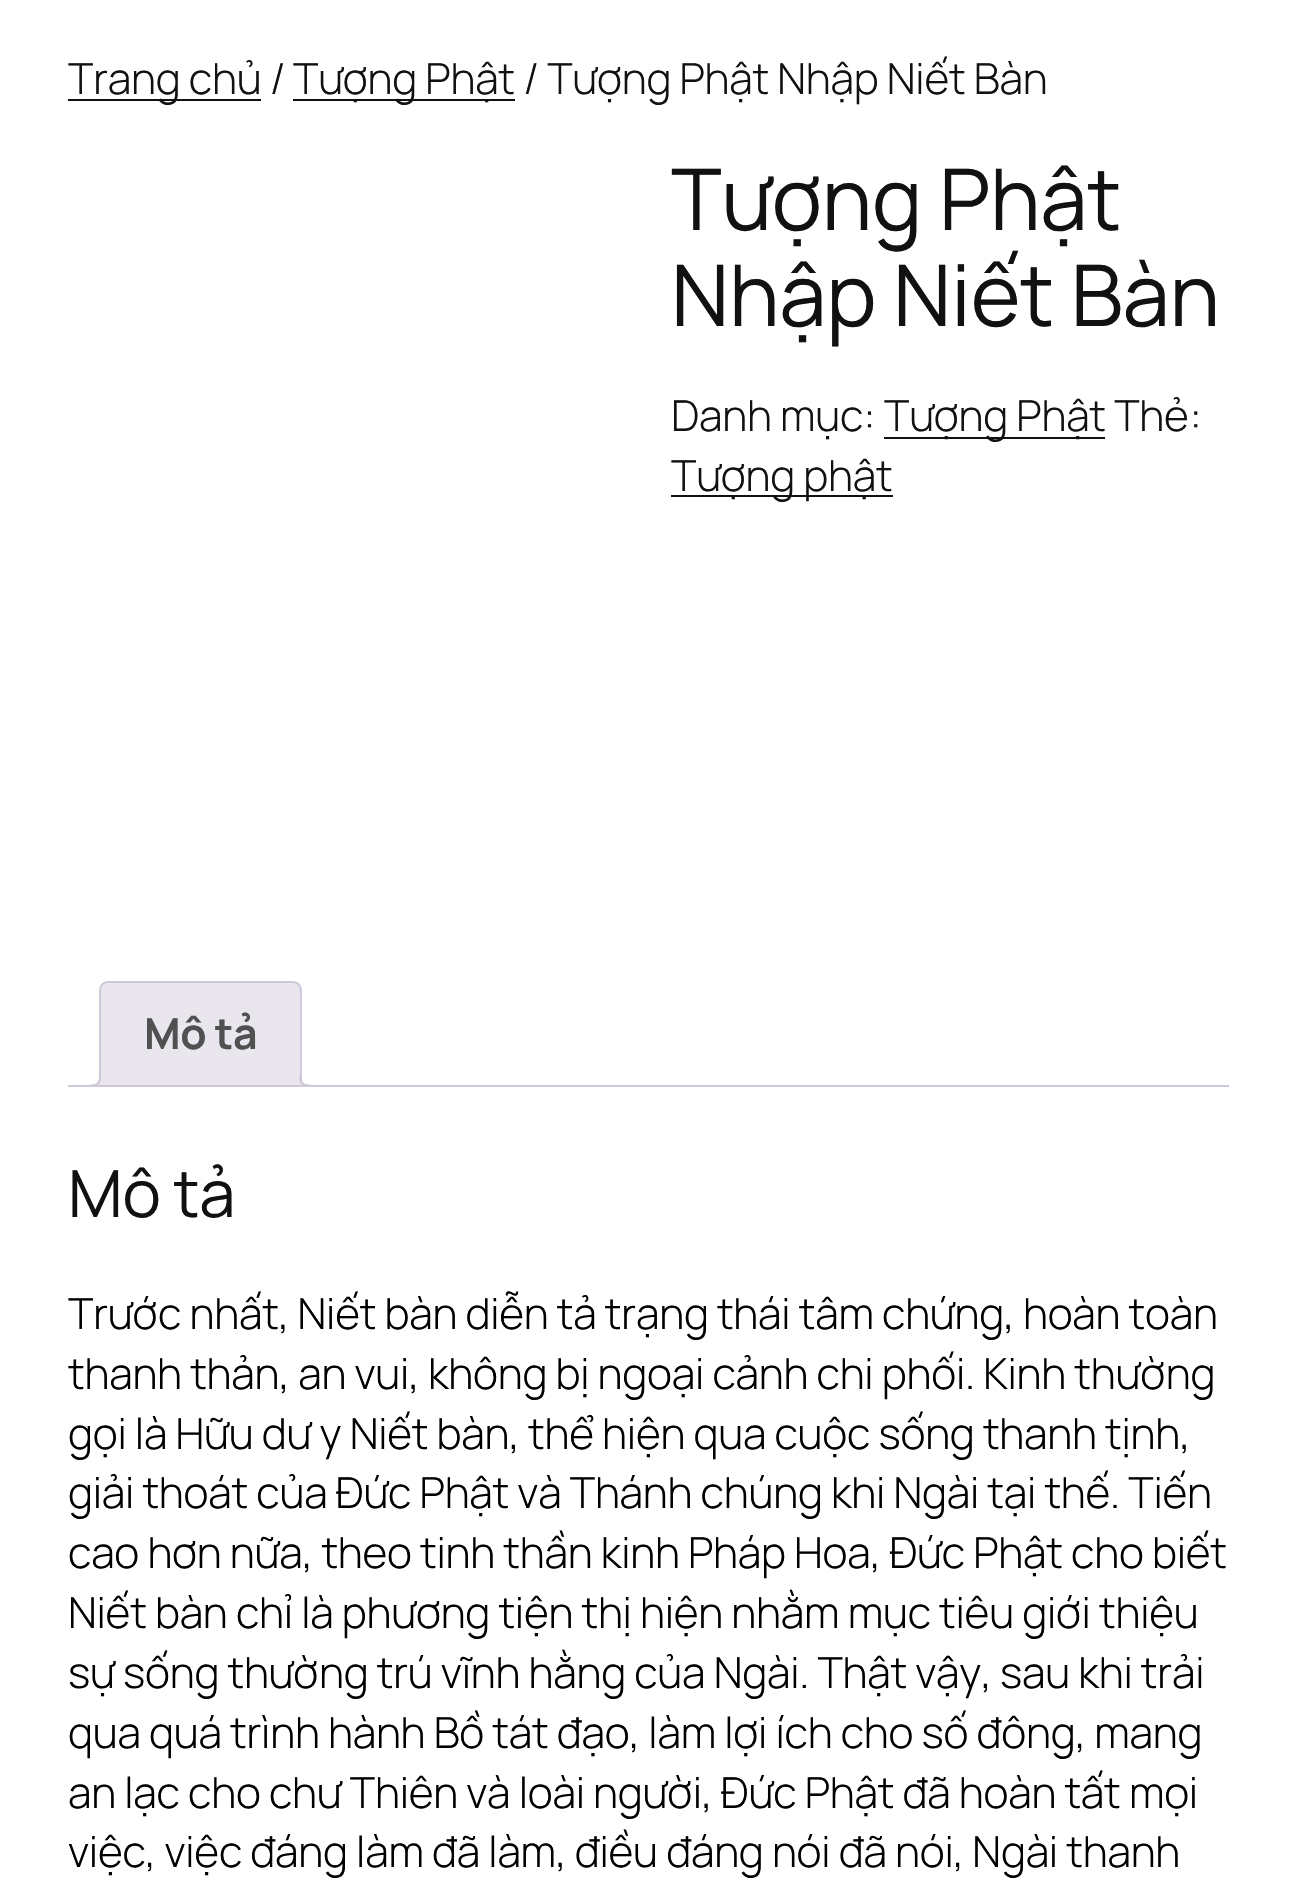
void draw(SkCanvas* canvas) {
  SkPaint paint;
  paint.setAntiAlias(true);
  auto face = [&](const char* family, int weight, float size, bool italic = false) {
    SkFontStyle style(weight, SkFontStyle::kNormal_Width,
      italic ? SkFontStyle::kItalic_Slant : SkFontStyle::kUpright_Slant);
    SkFont result(fontMgr->matchFamilyStyle(family, style), size);
    result.setSubpixel(true);
    return result;
  };
  auto writeSpaced = [&](const char* s, float x, float y, const SkFont& font, const SkPaint& ink, float letter, float word) {
    std::vector<SkGlyphID> glyphs(font.countText(s, strlen(s), SkTextEncoding::kUTF8));
    std::vector<float> xs(glyphs.size());
    font.textToGlyphs(s, strlen(s), SkTextEncoding::kUTF8, glyphs);
    font.getXPos(glyphs, xs, x);
    float extra = 0;
    for (size_t i = 0; i < glyphs.size(); i++) {
      xs[i] += extra;
      extra += letter + word * (glyphs[i] == font.unicharToGlyph(' '));
    }
    canvas->drawTextBlob(SkTextBlob::MakeFromPosHGlyphs(glyphs, xs, y, font), 0, 0, ink);
  };
  auto shape = [&](const char* data, bool evenOdd = false) {
    SkPath result = *SkParsePath::FromSVGString(data);
    if (evenOdd) result.setFillType(SkPathFillType::kEvenOdd);
    return result;
  };
  canvas->clear(0xffffffff);
  {
    const struct { float x, y, w, h; SkColor color; } items[] = {
      {68, 99, 193, 2, 0xff111111},
      {293, 99, 222, 2, 0xff111111},
      {884, 437, 221, 2, 0xff111111},
      {671, 495, 222, 2, 0xff111111},
    };
    for (auto [x, y, w, h, color] : items) {
      paint.setColor(color);
      canvas->drawRect(SkRect::MakeXYWH(x, y, w, h), paint);
    }
  }
  paint.setColor(0xffe9e6ed);
  canvas->drawPath(shape("M108 982H293C297.5 982 301 985.5 301 990V1086H100V990C100 985.5 103.5 982 108 982Z"), paint);
  paint.setStroke(true);
  paint.setStrokeWidth(2);
  paint.setColor(0xffcfc8d8);
  canvas->drawPath(shape("M108 982H293C297.5 982 301 985.5 301 990V1086H100V990C100 985.5 103.5 982 108 982Z"), paint);
  canvas->save();
  canvas->clipRect(SkRect::MakeXYWH(68, 981, 1161, 106));
  paint.setStroke(false);
  paint.setColor(0xffe9e6ed);
  canvas->drawPath(shape("M95 1086.5V1091C102.5 1091 106 1087.5 106 1080H101C100 1083 98 1085.5 95 1086.5Z"), paint);
  canvas->restore();
  paint.setColor(0xffcfc8d8);
  canvas->drawPath(shape("M90 1075.5H101C101 1083.5 98 1087 90 1087ZM90 1075.5H99C99 1082.5 97 1084.5 90 1084.5Z", true), paint);
  canvas->save();
  canvas->clipRect(SkRect::MakeXYWH(68, 981, 1161, 106));
  paint.setColor(0xffe9e6ed);
  canvas->drawPath(shape("M295 1080C295 1087.5 298.5 1091 306 1091V1086.5C303 1085.5 300.5 1083 299.5 1080Z"), paint);
  canvas->restore();
  paint.setColor(0xffcfc8d8);
  canvas->drawPath(shape("M299 1075.5H310.5V1087H308C303.5 1087 299 1082.5 299 1078ZM301.5 1075.5H310.5V1084.5C306 1084.5 301.5 1083.5 301.5 1078Z", true), paint);
  canvas->drawRect(SkRect::MakeXYWH(68, 1085, 1161, 2), paint);
  auto f0 = face("Manrope", 300, 42.75f);
  paint.setColor(0xff111111);
  writeSpaced("Trang chủ /", 68, 94, f0, paint, -0.23f, 0);
  writeSpaced("Tượng Phật / Tượng Phật Nhập Niết Bàn", 293, 94, f0, paint, -0.23f, 0);
  auto f1 = face("Manrope", 400, 85);
  writeSpaced("Tượng Phật", 671, 230, f1, paint, -0.23f, 0);
  writeSpaced("Nhập Niết Bàn", 671, 326, f1, paint, -0.23f, 0);
  {
    const struct { const char* s; float x, y; } items[] = {
      {"Danh mục:", 671, 431},
      {"Tượng Phật Thẻ:", 884, 431},
      {"Tượng phật", 671, 491},
    };
    for (auto [s, x, y] : items) {
      writeSpaced(s, x, y, f0, paint, -0.23f, 0);
    }
  }
  auto f2 = face("Manrope", 700, 42.75f);
  paint.setColor(0xff515151);
  writeSpaced("Mô tả", 144, 1049, f2, paint, -0.23f, 0);
  auto f3 = face("Manrope", 400, 65);
  paint.setColor(0xff111111);
  writeSpaced("Mô tả", 68, 1217, f3, paint, -0.23f, 0);
  paint.setColor(0xff000000);
  {
    const struct { const char* s; float x, y; } items[] = {
      {"Trước nhất, Niết bàn diễn tả trạng thái tâm chứng, hoàn toàn", 68, 1329},
      {"thanh thản, an vui, không bị ngoại cảnh chi phối. Kinh thường", 68, 1389},
      {"gọi là Hữu dư y Niết bàn, thể hiện qua cuộc sống thanh tịnh,", 68, 1449},
      {"giải thoát của Đức Phật và Thánh chúng khi Ngài tại thế. Tiến", 68, 1508},
      {"cao hơn nữa, theo tinh thần kinh Pháp Hoa, Đức Phật cho biết", 68, 1568},
      {"Niết bàn chỉ là phương tiện thị hiện nhằm mục tiêu giới thiệu", 68, 1628},
      {"sự sống thường trú vĩnh hằng của Ngài. Thật vậy, sau khi trải", 68, 1688},
      {"qua quá trình hành Bồ tát đạo, làm lợi ích cho số đông, mang", 68, 1748},
      {"an lạc cho chư Thiên và loài người, Đức Phật đã hoàn tất mọi", 68, 1808},
      {"việc, việc đáng làm đã làm, điều đáng nói đã nói, Ngài thanh", 68, 1867},
    };
    for (auto [s, x, y] : items) {
      writeSpaced(s, x, y, f0, paint, -0.23f, 0);
    }
  }
}
